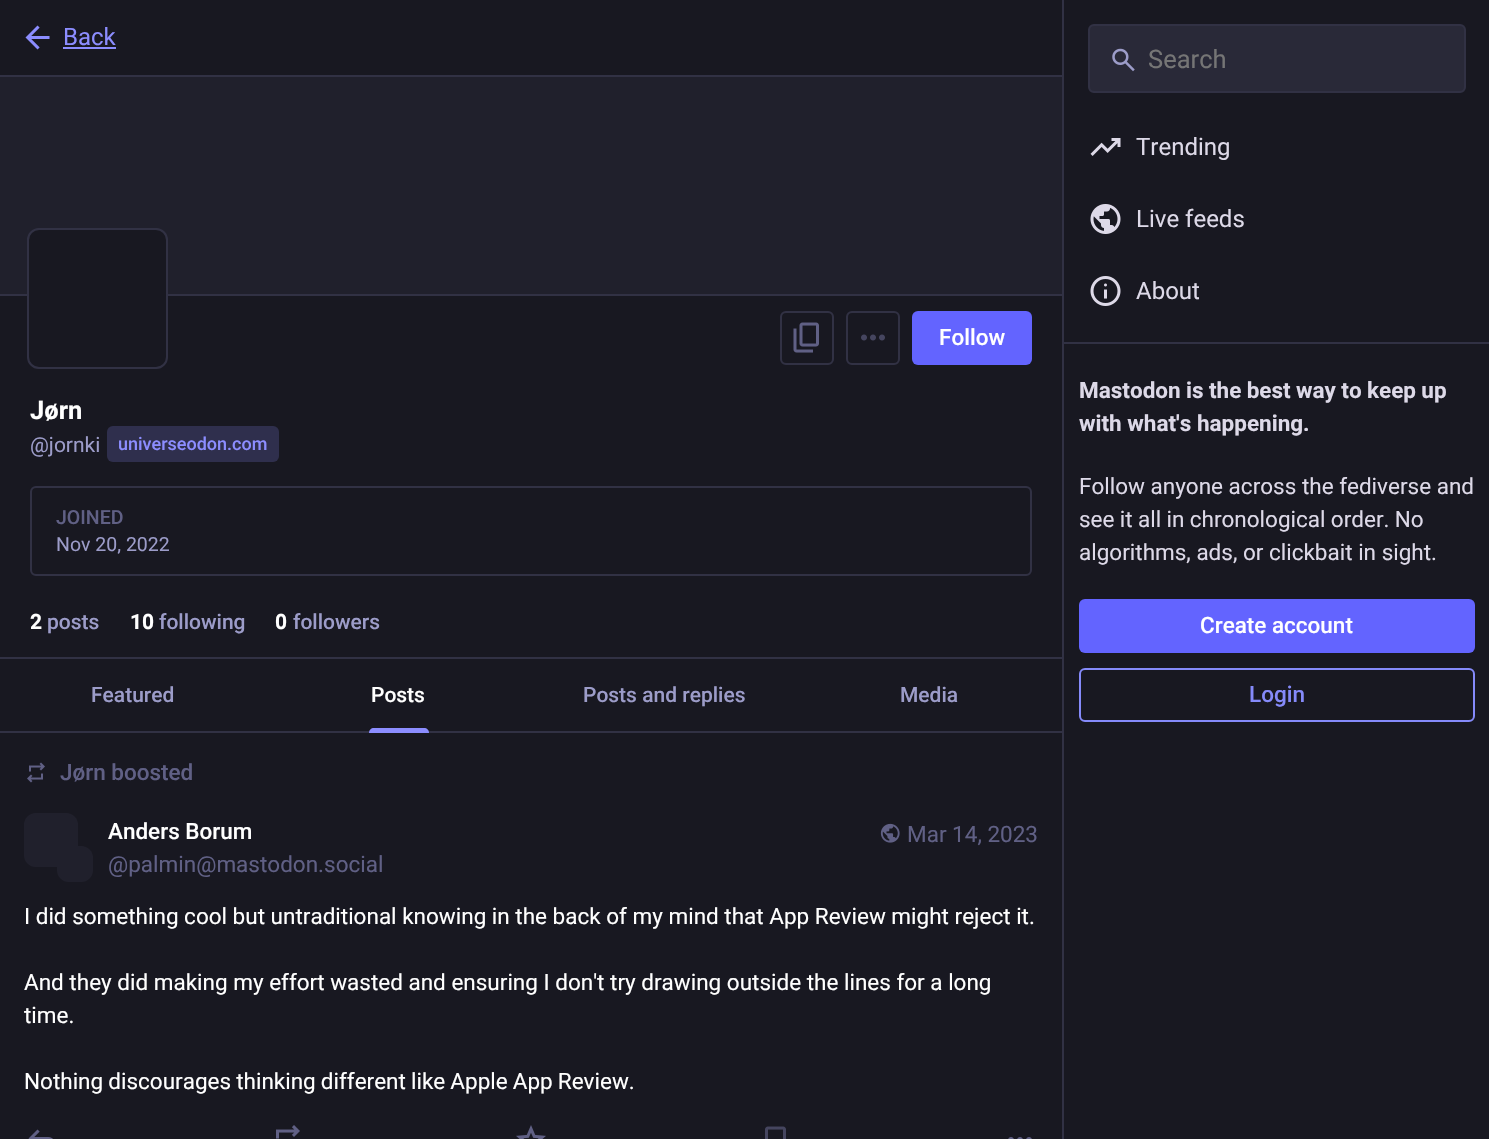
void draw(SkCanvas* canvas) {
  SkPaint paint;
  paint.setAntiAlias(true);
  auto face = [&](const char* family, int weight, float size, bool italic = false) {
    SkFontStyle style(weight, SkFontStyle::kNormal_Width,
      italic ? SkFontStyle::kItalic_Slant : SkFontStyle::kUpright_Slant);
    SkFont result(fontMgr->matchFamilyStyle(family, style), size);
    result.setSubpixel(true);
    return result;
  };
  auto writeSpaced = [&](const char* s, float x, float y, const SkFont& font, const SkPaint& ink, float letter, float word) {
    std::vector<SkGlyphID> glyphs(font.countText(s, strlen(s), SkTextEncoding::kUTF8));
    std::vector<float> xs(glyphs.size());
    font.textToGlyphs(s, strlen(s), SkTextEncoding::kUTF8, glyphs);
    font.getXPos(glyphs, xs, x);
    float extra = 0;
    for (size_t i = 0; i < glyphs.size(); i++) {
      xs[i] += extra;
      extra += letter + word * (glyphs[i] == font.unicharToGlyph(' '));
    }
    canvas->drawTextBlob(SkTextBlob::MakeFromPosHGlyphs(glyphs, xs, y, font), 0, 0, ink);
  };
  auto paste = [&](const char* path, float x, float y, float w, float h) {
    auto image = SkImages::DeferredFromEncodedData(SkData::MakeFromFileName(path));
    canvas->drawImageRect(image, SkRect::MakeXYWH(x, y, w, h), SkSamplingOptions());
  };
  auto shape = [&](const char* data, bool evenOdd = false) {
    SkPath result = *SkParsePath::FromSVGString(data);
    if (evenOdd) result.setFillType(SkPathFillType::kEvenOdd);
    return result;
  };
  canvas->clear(0xff181821);
  paint.setColor(0xff313144);
  canvas->drawRect(SkRect::MakeXYWH(0, 75, 1062, 2), paint);
  paste("img/1.png", 25, 25, 25, 25);
  {
    const struct { float x, y, w, h; SkColor color; } items[] = {
      {63, 47, 53, 2, 0xff8c8dff},
      {0, 77, 1062, 217, 0xff20202c},
      {0, 294, 1062, 2, 0xff313144},
      {0, 657, 1062, 2, 0xff313144},
    };
    for (auto [x, y, w, h, color] : items) {
      paint.setColor(color);
      canvas->drawRect(SkRect::MakeXYWH(x, y, w, h), paint);
    }
  }
  paint.setColor(0xff181821);
  canvas->drawRoundRect(SkRect::MakeXYWH(28, 229, 139, 139), 11, 11, paint);
  paint.setStroke(true);
  paint.setStrokeWidth(2);
  paint.setColor(0xff313144);
  canvas->drawRoundRect(SkRect::MakeXYWH(28, 229, 139, 139), 11, 11, paint);
  canvas->drawRoundRect(SkRect::MakeXYWH(781, 312, 52, 52), 5, 5, paint);
  paste("img/2.png", 793, 322, 26, 31);
  canvas->drawRoundRect(SkRect::MakeXYWH(847, 312, 52, 52), 5, 5, paint);
  paste("img/3.png", 861, 334, 24, 7);
  paint.setStroke(false);
  paint.setColor(0xff6364ff);
  canvas->drawRoundRect(SkRect::MakeXYWH(912, 311, 120, 54), 6, 6, paint);
  paint.setColor(0xff2f2f4d);
  canvas->drawRoundRect(SkRect::MakeXYWH(107, 426, 172, 36), 6, 6, paint);
  paint.setStroke(true);
  paint.setColor(0xff313144);
  canvas->drawRoundRect(SkRect::MakeXYWH(31, 487, 1000, 88), 5, 5, paint);
  paint.setStroke(false);
  canvas->drawRect(SkRect::MakeXYWH(0, 731, 1062, 2), paint);
  paint.setColor(0xff8c8dff);
  canvas->drawPath(shape("M374 728H424C427 728 429 730 429 733H369C369 730 371 728 374 728Z"), paint);
  paste("img/4.png", 27, 762, 18, 21);
  paint.setColor(0xff20202c);
  canvas->drawRoundRect(SkRect::MakeXYWH(24, 813, 54, 54), 12, 12, paint);
  canvas->drawRoundRect(SkRect::MakeXYWH(57, 846, 36, 36), 12, 12, paint);
  paste("img/5.png", 880, 823, 20, 20);
  paste("img/6.png", 28, 1129, 25, 10);
  paste("img/7.png", 276, 1125, 24, 14);
  paste("img/8.png", 516, 1125, 30, 14);
  paste("img/9.png", 765, 1126, 21, 13);
  paste("img/10.png", 1008, 1137, 24, 2);
  paint.setColor(0xff313144);
  canvas->drawRect(SkRect::MakeXYWH(1062, 0, 2, 1139), paint);
  paint.setColor(0xff292938);
  canvas->drawRoundRect(SkRect::MakeXYWH(1089, 25, 376, 67), 5, 5, paint);
  paint.setStroke(true);
  paint.setColor(0xff313144);
  canvas->drawRoundRect(SkRect::MakeXYWH(1089, 25, 376, 67), 5, 5, paint);
  paste("img/11.png", 1112, 48, 23, 24);
  paste("img/12.png", 1090, 138, 31, 18);
  paste("img/13.png", 1090, 204, 31, 30);
  paste("img/14.png", 1090, 276, 31, 30);
  paint.setStroke(false);
  canvas->drawRect(SkRect::MakeXYWH(1064, 342, 425, 2), paint);
  paint.setColor(0xff6364ff);
  canvas->drawRoundRect(SkRect::MakeXYWH(1079, 599, 396, 54), 6, 6, paint);
  paint.setStroke(true);
  paint.setColor(0xff858afa);
  canvas->drawRoundRect(SkRect::MakeXYWH(1080, 669, 394, 52), 5, 5, paint);
  auto f0 = face("Roboto", 400, 24);
  paint.setStroke(false);
  paint.setColor(0xff8c8dff);
  canvas->drawString("Back", 63, 45, f0, paint);
  auto f1 = face("Roboto", 500, 22.5f);
  paint.setColor(0xffffffff);
  canvas->drawString("Follow", 939, 345, f1, paint);
  auto f2 = face("Roboto", 700, 25.5f);
  canvas->drawString("Jørn", 30, 419, f2, paint);
  auto f3 = face("Roboto", 400, 21);
  paint.setColor(0xff9c9cc9);
  canvas->drawString("@jornki", 30, 452, f3, paint);
  auto f4 = face("Roboto", 500, 18);
  paint.setColor(0xff8c8dff);
  canvas->drawString("universeodon.com", 118, 450, f4, paint);
  auto f5 = face("Roboto", 500, 19.5f);
  paint.setColor(0xff606085);
  canvas->drawString("JOINED", 56, 524, f5, paint);
  auto f6 = face("Roboto", 400, 19.5f);
  paint.setColor(0xff9c9cc9);
  canvas->drawString("Nov 20, 2022", 56, 551, f6, paint);
  auto f7 = face("Roboto", 700, 21);
  paint.setColor(0xffffffff);
  canvas->drawString("2", 30, 629, f7, paint);
  auto f8 = face("Roboto", 500, 21);
  paint.setColor(0xff9c9cc9);
  canvas->drawString("posts", 47, 629, f8, paint);
  paint.setColor(0xffffffff);
  canvas->drawString("10", 130, 629, f7, paint);
  paint.setColor(0xff9c9cc9);
  canvas->drawString("following", 159, 629, f8, paint);
  paint.setColor(0xffffffff);
  canvas->drawString("0", 275, 629, f7, paint);
  paint.setColor(0xff9c9cc9);
  canvas->drawString("followers", 293, 629, f8, paint);
  canvas->drawString("Featured", 91, 702, f8, paint);
  paint.setColor(0xffffffff);
  canvas->drawString("Posts", 371, 702, f8, paint);
  paint.setColor(0xff9c9cc9);
  canvas->drawString("Posts and replies", 583, 702, f8, paint);
  canvas->drawString("Media", 900, 702, f8, paint);
  paint.setColor(0xff606085);
  canvas->drawString("Jørn boosted", 60, 780, f1, paint);
  paint.setColor(0xffffffff);
  canvas->drawString("Anders Borum", 108, 839, f1, paint);
  auto f9 = face("Roboto", 400, 22.5f);
  paint.setColor(0xff606085);
  canvas->drawString("@palmin@mastodon.social", 108, 872, f9, paint);
  canvas->drawString("Mar 14, 2023", 907, 842, f9, paint);
  paint.setColor(0xffffffff);
  {
    const struct { const char* s; float x, y; } items[] = {
      {"I did something cool but untraditional knowing in the back of my mind that App Review might reject it.", 24, 924},
      {"And they did making my effort wasted and ensuring I don't try drawing outside the lines for a long", 24, 990},
      {"time.", 24, 1023},
    };
    for (auto [s, x, y] : items) {
      canvas->drawString(s, x, y, f9, paint);
    }
  }
  writeSpaced("Nothing discourages thinking different like Apple App Review.", 24, 1089, f9, paint, 0, -0.5f);
  auto f10 = face("Roboto", 400, 25.5f);
  paint.setColor(0xff757575);
  canvas->drawString("Search", 1148, 68, f10, paint);
  paint.setColor(0xffddd9e8);
  {
    const struct { const char* s; float x, y; } items[] = {
      {"Trending", 1136, 155},
      {"Live feeds", 1136, 227},
      {"About", 1136, 299},
    };
    for (auto [s, x, y] : items) {
      canvas->drawString(s, x, y, f0, paint);
    }
  }
  auto f11 = face("Roboto", 700, 22.5f);
  writeSpaced("Mastodon is the best way to keep up", 1079, 398, f11, paint, 0, -0.25f);
  canvas->drawString("with what's happening.", 1079, 431, f11, paint);
  canvas->drawString("Follow anyone across the fediverse and", 1079, 494, f9, paint);
  writeSpaced("see it all in chronological order. No", 1079, 527, f9, paint, 0, -0.25f);
  canvas->drawString("algorithms, ads, or clickbait in sight.", 1079, 560, f9, paint);
  paint.setColor(0xffffffff);
  canvas->drawString("Create account", 1200, 633, f1, paint);
  paint.setColor(0xff858afa);
  canvas->drawString("Login", 1249, 702, f1, paint);
}
